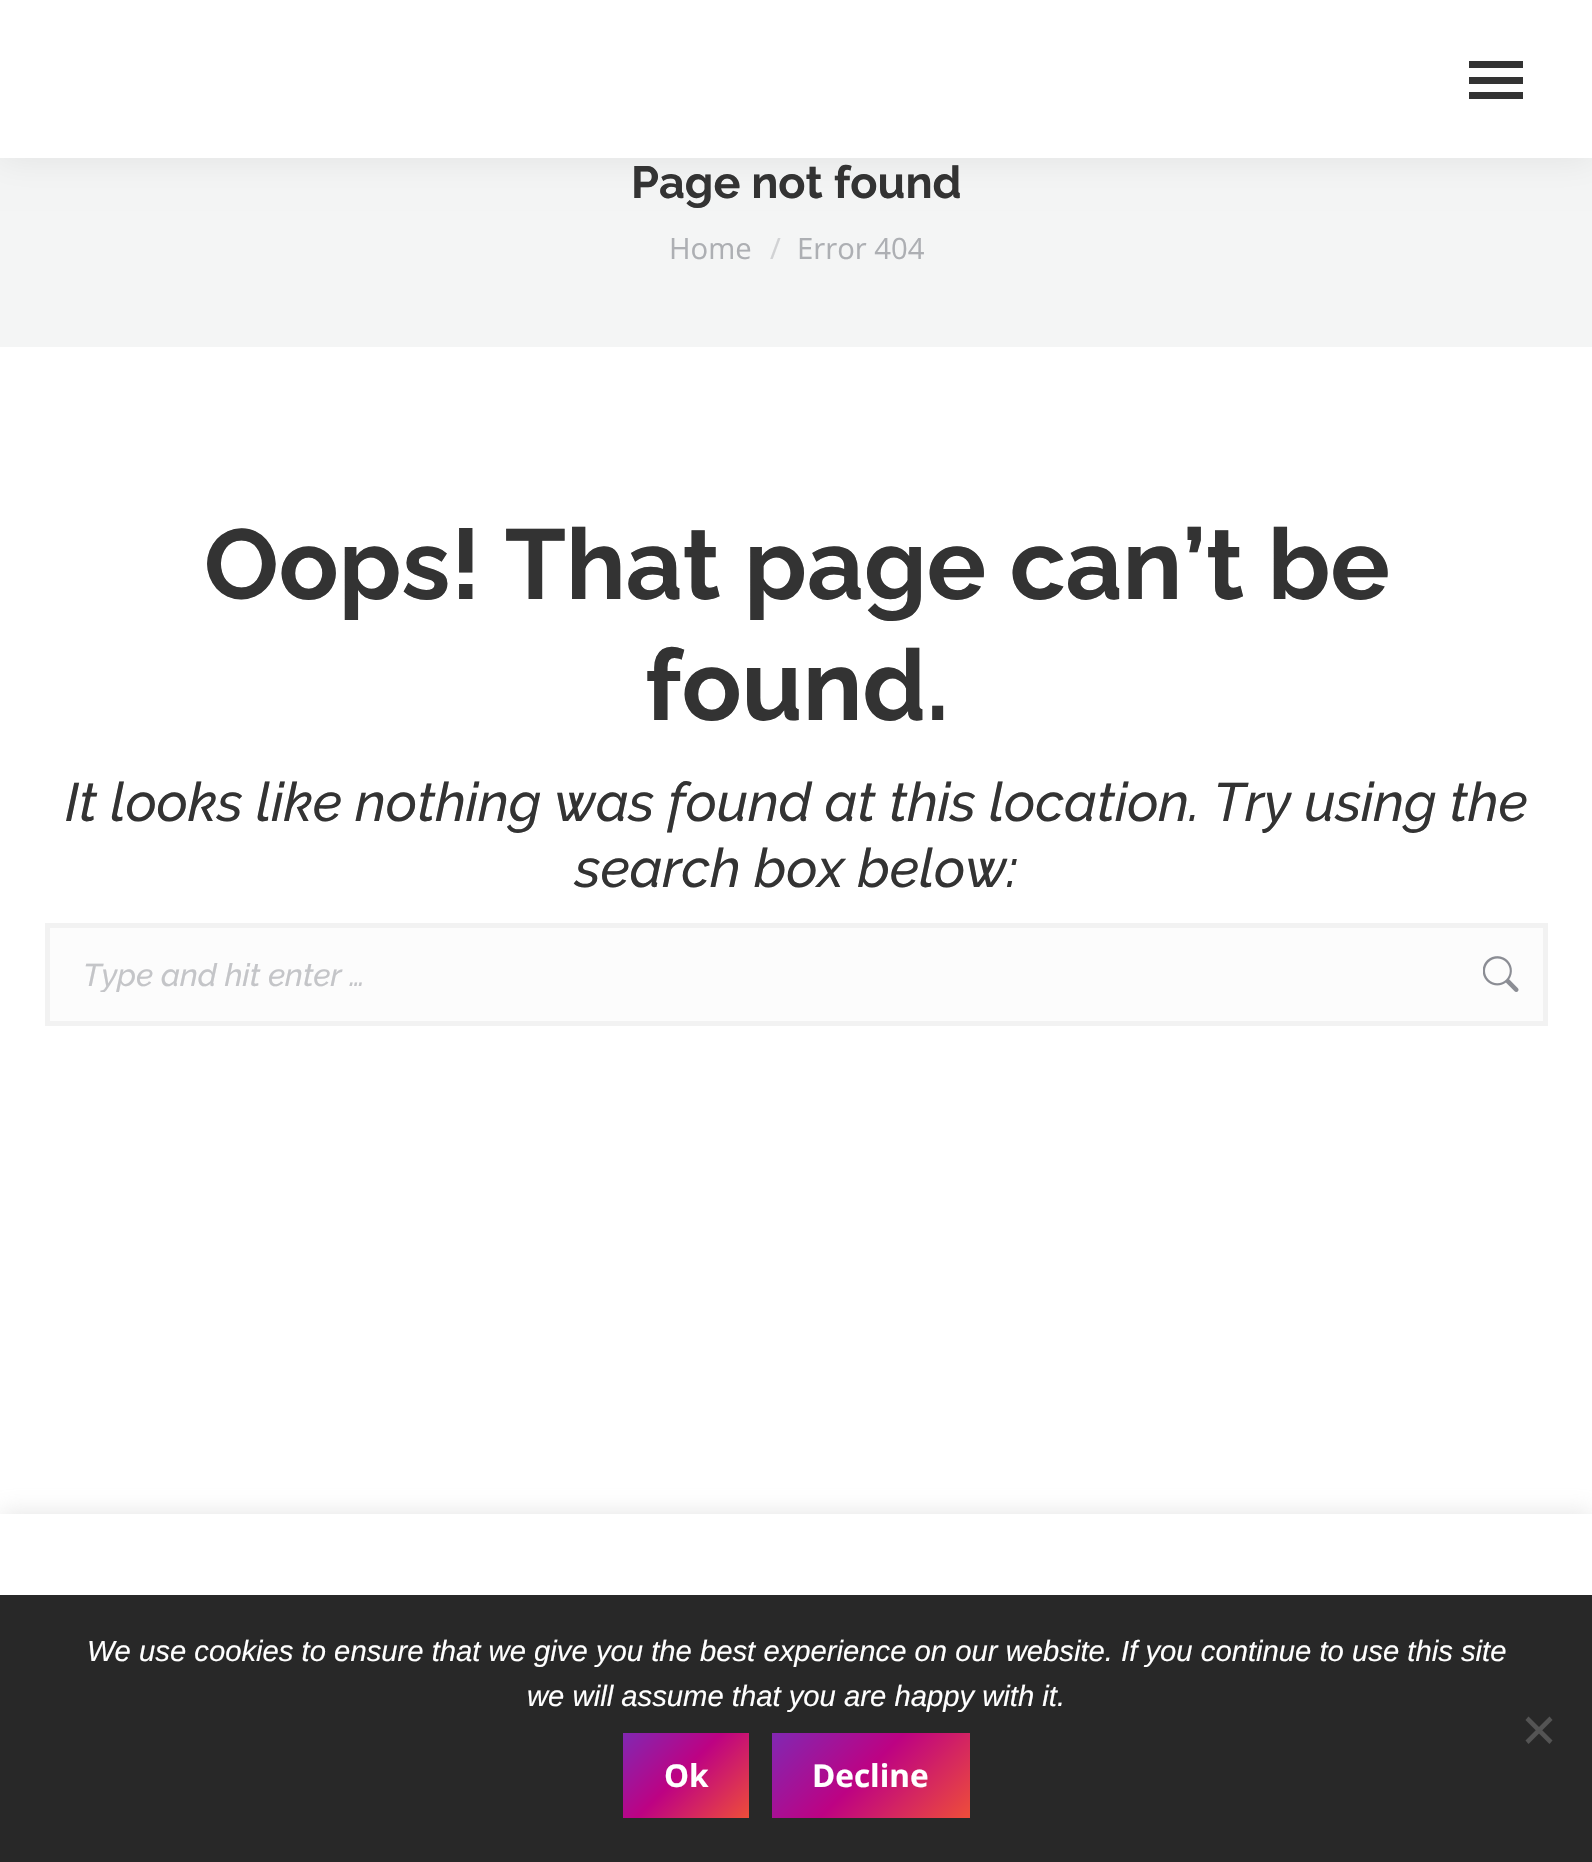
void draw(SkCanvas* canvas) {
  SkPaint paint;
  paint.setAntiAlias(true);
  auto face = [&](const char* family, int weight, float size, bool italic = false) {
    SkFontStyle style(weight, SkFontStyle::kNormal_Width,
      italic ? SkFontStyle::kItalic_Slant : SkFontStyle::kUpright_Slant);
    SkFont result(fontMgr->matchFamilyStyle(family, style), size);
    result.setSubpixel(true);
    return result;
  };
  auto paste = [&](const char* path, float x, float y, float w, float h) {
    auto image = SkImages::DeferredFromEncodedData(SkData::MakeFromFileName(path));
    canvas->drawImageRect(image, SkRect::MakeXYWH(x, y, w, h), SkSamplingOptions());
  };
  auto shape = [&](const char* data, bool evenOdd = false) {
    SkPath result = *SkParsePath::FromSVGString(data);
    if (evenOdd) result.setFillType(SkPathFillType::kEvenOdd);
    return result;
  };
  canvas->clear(0xffffffff);
  paint.setColor(0xfff4f5f5);
  canvas->drawRect(SkRect::MakeXYWH(0, 158, 1592, 189), paint);
  paint.setColor(0x12000000);
  paint.setMaskFilter(SkMaskFilter::MakeBlur(kNormal_SkBlurStyle, 17));
  canvas->drawRect(SkRect::MakeXYWH(-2, -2, 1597, 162), paint);
  paint.setMaskFilter(nullptr);
  {
    const struct { float x, y, w, h; SkColor color; } items[] = {
      {0, 0, 1592, 158, 0xffffffff},
      {1469, 61, 54, 7, 0xff333333},
      {1469, 77, 54, 7, 0xff333333},
      {1469, 92, 54, 7, 0xff333333},
    };
    for (auto [x, y, w, h, color] : items) {
      paint.setColor(color);
      canvas->drawRect(SkRect::MakeXYWH(x, y, w, h), paint);
    }
  }
  paint.setColor(0xfffcfcfc);
  canvas->drawRect(SkRect::MakeXYWH(47.5f, 925.5f, 1498, 98), paint);
  paint.setStroke(true);
  paint.setStrokeWidth(5);
  paint.setColor(0xfff2f2f2);
  canvas->drawRect(SkRect::MakeXYWH(47.5f, 925.5f, 1498, 98), paint);
  paste("img/1.png", 1483, 956, 36, 36);
  paint.setStroke(false);
  paint.setColor(0x4dacabab);
  paint.setMaskFilter(SkMaskFilter::MakeBlur(kNormal_SkBlurStyle, 11));
  canvas->drawRect(SkRect::MakeXYWH(0, 1512, 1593, 349), paint);
  paint.setMaskFilter(nullptr);
  paint.setColor(0xffffffff);
  canvas->drawRect(SkRect::MakeXYWH(0, 1514, 1592, 81), paint);
  paint.setColor(0xff282828);
  canvas->drawRect(SkRect::MakeXYWH(0, 1595, 1592, 267), paint);
  paint.setColor(0xff545454);
  canvas->drawPath(shape("M1549.5 1716.5L1552.5 1720L1528.5 1744L1525.5 1740.5Z"), paint);
  canvas->drawPath(shape("M1525.5 1720L1528.5 1716.5L1552.5 1740.5L1549.5 1744Z"), paint);
  {
    const SkColor colors[] = {0xff8426b0, 0xffbd0283, 0xffec4b3c};
    const float stops[] = {0.03f, 0.47f, 0.98f};
    const SkPoint ends[] = {{633, 1722}, {739, 1828}};
    paint.setShader(SkGradientShader::MakeLinear(ends, colors, stops, 3, SkTileMode::kClamp));
    paint.setAlpha(255);
  }
  canvas->drawRect(SkRect::MakeXYWH(623, 1733, 126, 85), paint);
  {
    const SkColor colors[] = {0xff8426b0, 0xffbd0283, 0xffec4b3c};
    const float stops[] = {0.03f, 0.47f, 0.98f};
    const SkPoint ends[] = {{800, 1704}, {942, 1846}};
    paint.setShader(SkGradientShader::MakeLinear(ends, colors, stops, 3, SkTileMode::kClamp));
    paint.setAlpha(255);
  }
  canvas->drawRect(SkRect::MakeXYWH(772, 1733, 198, 85), paint);
  auto f0 = face("Raleway", 700, 45);
  paint.setShader(nullptr);
  paint.setColor(0xff333333);
  canvas->drawString("Page not found", 631, 198, f0, paint);
  auto f1 = face("Open Sans", 400, 29.25f);
  paint.setColor(0xffadafb3);
  canvas->drawString("Home", 669, 259, f1, paint);
  paint.setColor(0xffd1d2d4);
  canvas->drawString("/", 770, 259, f1, paint);
  paint.setColor(0xffadafb3);
  canvas->drawString("Error 404", 797, 259, f1, paint);
  auto f2 = face("Raleway", 700, 99);
  paint.setColor(0xff333333);
  canvas->drawString("Oops! That page can’t be", 204, 599, f2, paint);
  canvas->drawString("found.", 645, 720, f2, paint);
  auto f3 = face("Raleway", 100, 54, true);
  canvas->drawString("It looks like nothing was found at this location. Try using the", 65, 821, f3, paint);
  canvas->drawString("search box below:", 575, 887, f3, paint);
  canvas->save();
  canvas->clipRect(SkRect::MakeXYWH(83, 956, 1393, 36));
  auto f4 = face("Raleway", 100, 31.5f, true);
  paint.setColor(0xffc4c5c8);
  canvas->drawString("Type and hit enter …", 83, 986, f4, paint);
  canvas->restore();
  auto f5 = face("Liberation Sans", 400, 29.25f, true);
  paint.setColor(0xffffffff);
  canvas->drawString("We use cookies to ensure that we give you the best experience on our website. If you continue to use this site", 87, 1661, f5, paint);
  canvas->drawString("we will assume that you are happy with it.", 527, 1706, f5, paint);
  auto f6 = face("Open Sans", 700, 31.5f);
  canvas->drawString("Ok", 664, 1787, f6, paint);
  canvas->drawString("Decline", 812, 1787, f6, paint);
}
